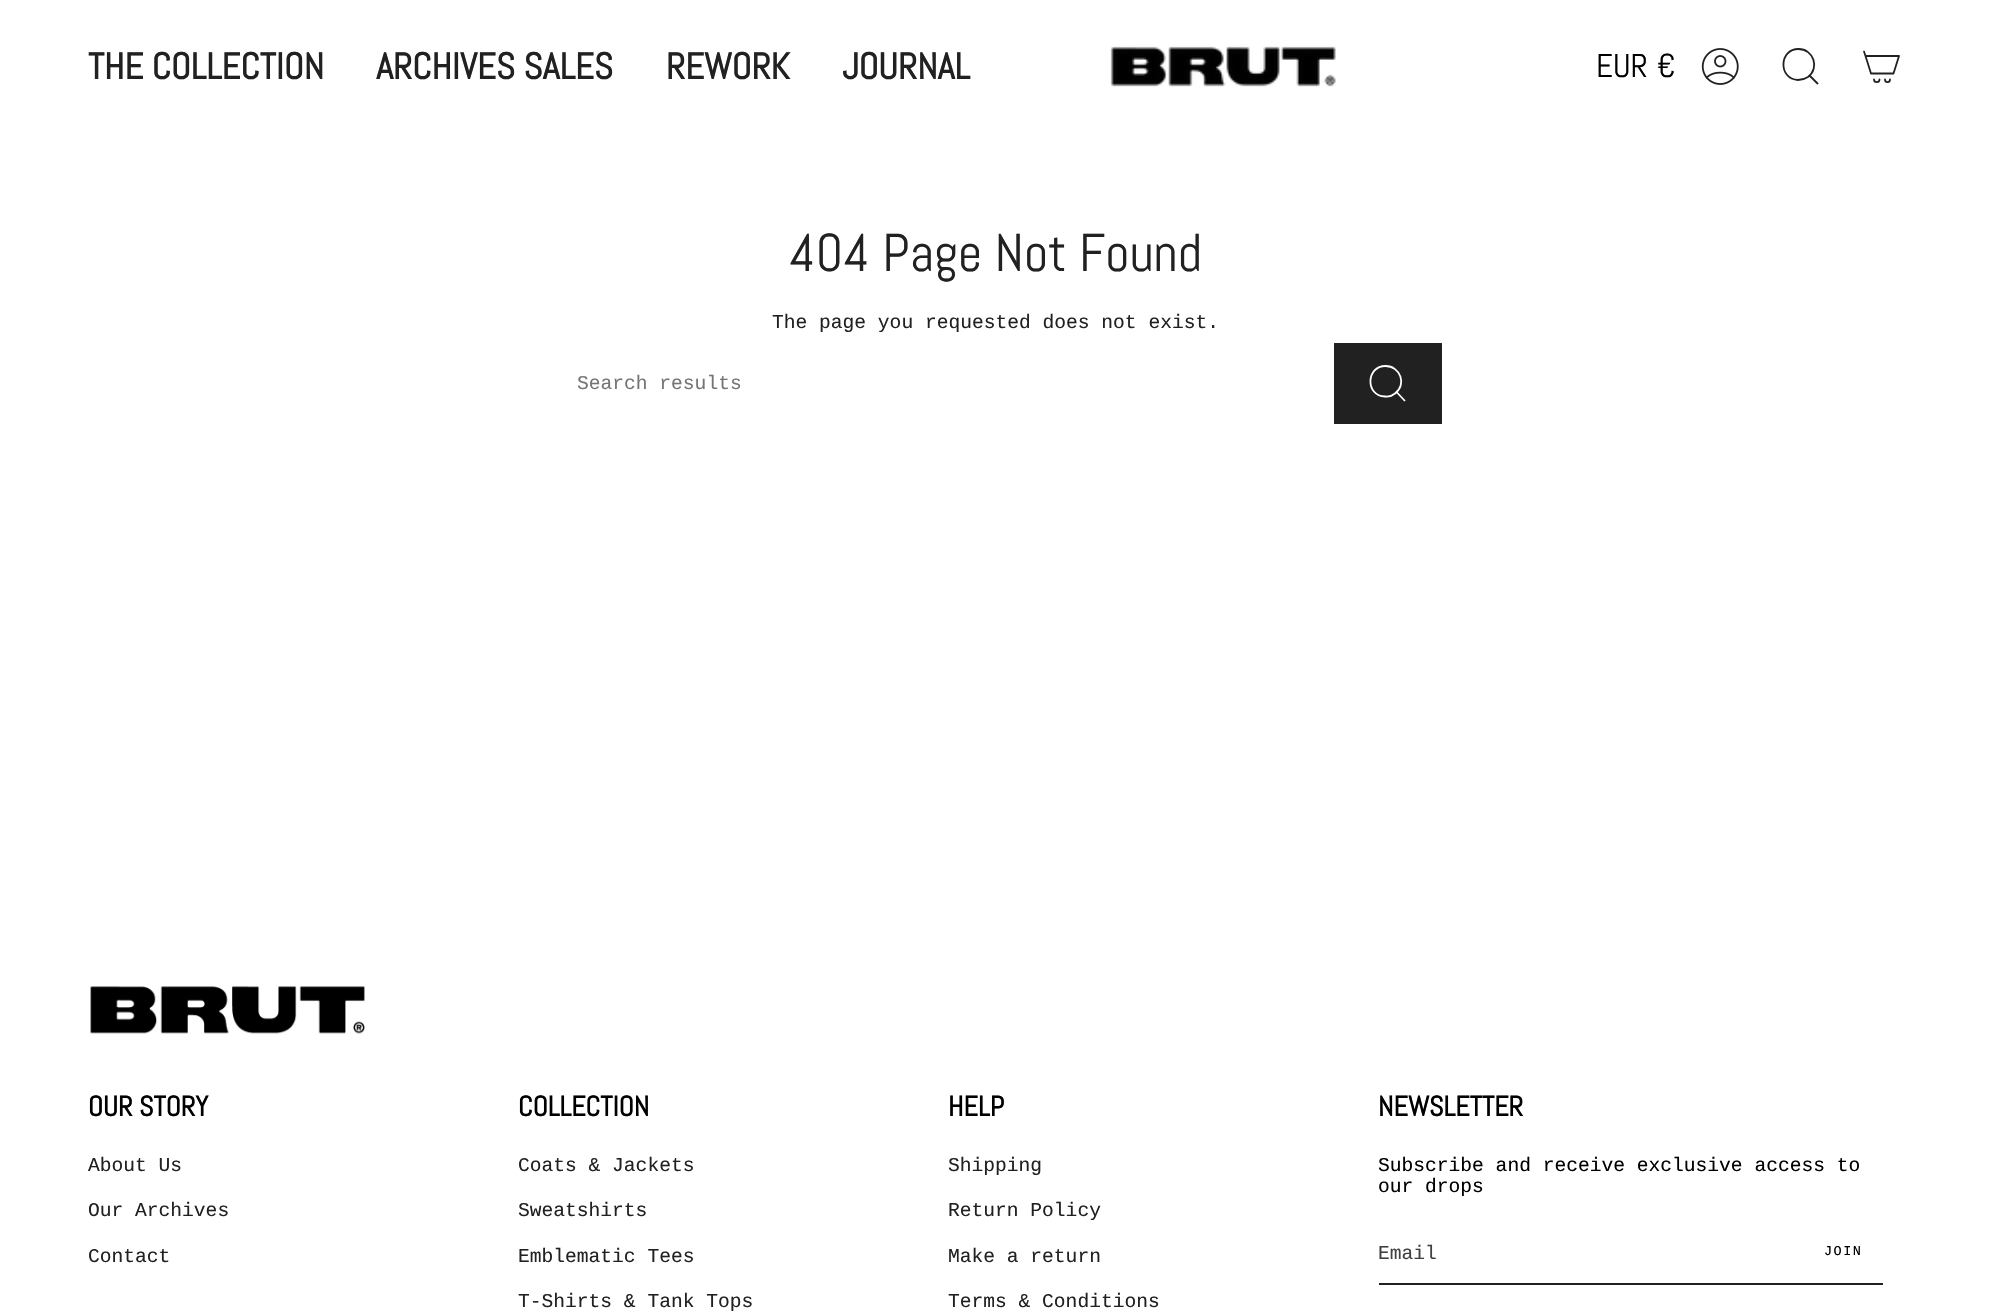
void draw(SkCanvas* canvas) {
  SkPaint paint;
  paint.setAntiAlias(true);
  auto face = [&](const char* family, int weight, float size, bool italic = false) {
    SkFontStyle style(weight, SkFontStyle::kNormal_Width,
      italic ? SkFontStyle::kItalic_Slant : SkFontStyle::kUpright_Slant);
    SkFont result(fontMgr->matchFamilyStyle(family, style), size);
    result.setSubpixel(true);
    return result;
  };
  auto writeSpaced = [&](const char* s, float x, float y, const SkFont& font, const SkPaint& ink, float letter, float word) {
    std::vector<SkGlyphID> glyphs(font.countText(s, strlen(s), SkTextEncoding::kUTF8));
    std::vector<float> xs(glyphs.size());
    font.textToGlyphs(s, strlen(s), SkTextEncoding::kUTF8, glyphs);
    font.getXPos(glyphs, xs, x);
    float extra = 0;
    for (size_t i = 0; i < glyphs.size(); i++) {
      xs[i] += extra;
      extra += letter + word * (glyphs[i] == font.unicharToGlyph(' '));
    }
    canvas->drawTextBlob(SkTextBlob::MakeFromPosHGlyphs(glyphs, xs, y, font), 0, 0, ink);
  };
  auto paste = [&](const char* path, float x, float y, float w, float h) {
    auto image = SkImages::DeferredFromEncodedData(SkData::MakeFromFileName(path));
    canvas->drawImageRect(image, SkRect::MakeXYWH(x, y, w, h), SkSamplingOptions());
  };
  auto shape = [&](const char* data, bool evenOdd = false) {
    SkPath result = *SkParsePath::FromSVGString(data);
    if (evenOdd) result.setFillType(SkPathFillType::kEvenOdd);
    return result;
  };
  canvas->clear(0xffffffff);
  paste("img/1.png", 1110, 46, 226, 41);
  paste("img/2.png", 1701, 48, 38, 37);
  paint.setStroke(true);
  paint.setStrokeWidth(1.8f);
  paint.setColor(0xff212121);
  canvas->drawPath(shape("M1798.5 49C1813.5 49 1820 68 1808 77C1805 79 1801.5 80 1798 80C1778 79 1779 49 1798.5 49ZM1809.5 75.5L1818 84"), paint);
  paint.setStrokeCap(SkPaint::kRound_Cap);
  paint.setStrokeJoin(SkPaint::kRound_Join);
  canvas->drawPath(shape("M1865.5 56H1899L1893.5 73.5H1871ZM1865.5 56L1864 51.5M1879.5 79.5C1879.5 83 1874 83 1874 79.5M1890 79.5C1890 83 1885 83 1885 79.5"), paint);
  paint.setStroke(false);
  canvas->drawRect(SkRect::MakeXYWH(1334, 343, 108, 81), paint);
  paint.setStroke(true);
  paint.setStrokeCap(SkPaint::kButt_Cap);
  paint.setStrokeJoin(SkPaint::kMiter_Join);
  paint.setColor(0xffffffff);
  canvas->drawPath(shape("M1385.5 366C1400.5 366 1407 385 1395 393.5C1392 396 1388.5 397 1385 396.5C1365 396 1366 366 1385.5 366ZM1396.5 392L1405 401"), paint);
  paste("img/3.png", 90, 986, 275, 48);
  paint.setStroke(false);
  paint.setColor(0xff212121);
  canvas->drawRect(SkRect::MakeXYWH(1379, 1283, 504, 2), paint);
  auto f0 = face("Abel", 700, 36.75f);
  {
    const struct { const char* s; float x, y; } items[] = {
      {"THE COLLECTION", 88, 79},
      {"ARCHIVES SALES", 376, 79},
      {"REWORK", 666, 79},
      {"JOURNAL", 842, 79},
    };
    for (auto [s, x, y] : items) {
      canvas->drawString(s, x, y, f0, paint);
    }
  }
  auto f1 = face("Abel", 400, 33);
  paint.setColor(0xff000000);
  canvas->drawString("EUR", 1596, 77, f1, paint);
  canvas->drawString("€", 1657, 77, f1, paint);
  auto f2 = face("Abel", 400, 53.25f);
  paint.setColor(0xff212121);
  canvas->drawString("404 Page Not Found", 789, 271, f2, paint);
  auto f3 = face("Liberation Mono", 400, 19.6f);
  canvas->drawString("The page you requested does not exist.", 772, 328, f3, paint);
  paint.setColor(0xff757575);
  canvas->drawString("Search results", 577, 389, f3, paint);
  auto f4 = face("Abel", 700, 28);
  paint.setColor(0xff000000);
  canvas->drawString("OUR STORY", 88, 1116, f4, paint);
  paint.setColor(0xff212121);
  {
    const struct { const char* s; float x, y; } items[] = {
      {"About Us", 88, 1171},
      {"Our Archives", 88, 1216},
      {"Contact", 88, 1262},
    };
    for (auto [s, x, y] : items) {
      canvas->drawString(s, x, y, f3, paint);
    }
  }
  paint.setColor(0xff000000);
  canvas->drawString("COLLECTION", 518, 1116, f4, paint);
  paint.setColor(0xff212121);
  {
    const struct { const char* s; float x, y; } items[] = {
      {"Coats & Jackets", 518, 1171},
      {"Sweatshirts", 518, 1216},
      {"Emblematic Tees", 518, 1262},
      {"T-Shirts & Tank Tops", 518, 1307},
    };
    for (auto [s, x, y] : items) {
      canvas->drawString(s, x, y, f3, paint);
    }
  }
  paint.setColor(0xff000000);
  canvas->drawString("HELP", 948, 1116, f4, paint);
  paint.setColor(0xff212121);
  {
    const struct { const char* s; float x, y; } items[] = {
      {"Shipping", 948, 1171},
      {"Return Policy", 948, 1216},
      {"Make a return", 948, 1262},
      {"Terms & Conditions", 948, 1307},
    };
    for (auto [s, x, y] : items) {
      canvas->drawString(s, x, y, f3, paint);
    }
  }
  paint.setColor(0xff000000);
  canvas->drawString("NEWSLETTER", 1378, 1116, f4, paint);
  canvas->drawString("Subscribe and receive exclusive access to", 1378, 1171, f3, paint);
  canvas->drawString("our drops", 1378, 1192, f3, paint);
  paint.setColor(0xff404040);
  canvas->drawString("Email", 1378, 1259, f3, paint);
  auto f5 = face("Liberation Mono", 400, 13.5f);
  paint.setColor(0xff000000);
  writeSpaced("JOIN", 1824, 1255, f5, paint, 1.5f, 0);
}
